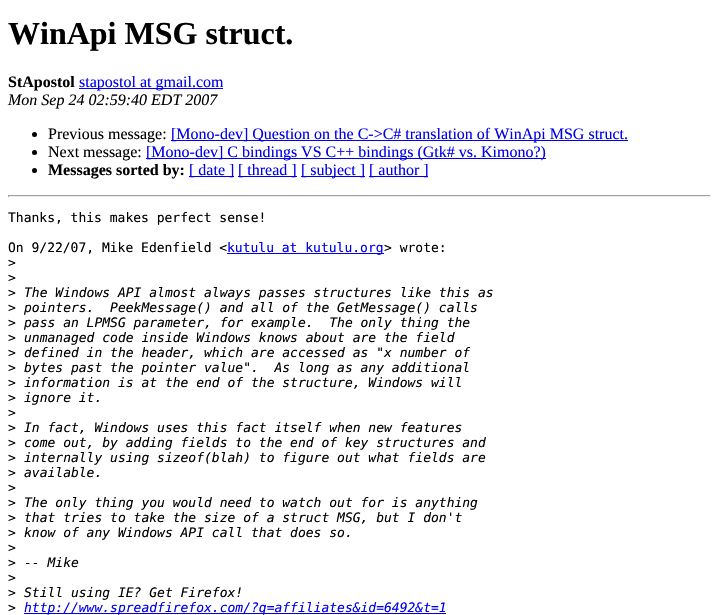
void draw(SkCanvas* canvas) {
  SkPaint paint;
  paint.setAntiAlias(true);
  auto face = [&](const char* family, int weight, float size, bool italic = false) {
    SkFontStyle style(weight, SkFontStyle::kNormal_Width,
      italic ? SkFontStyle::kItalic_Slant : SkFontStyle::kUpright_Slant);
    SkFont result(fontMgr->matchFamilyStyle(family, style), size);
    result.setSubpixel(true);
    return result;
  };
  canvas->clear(0xffffffff);
  paint.setColor(0xff0000ee);
  canvas->drawRect(SkRect::MakeXYWH(79, 88, 144, 1), paint);
  paint.setColor(0xff000000);
  canvas->drawCircle(34.5f, 134.5f, 2.5f, paint);
  paint.setColor(0xff0000ee);
  canvas->drawRect(SkRect::MakeXYWH(171, 140, 457, 1), paint);
  paint.setColor(0xff000000);
  canvas->drawCircle(34.5f, 152.5f, 2.5f, paint);
  paint.setColor(0xff0000ee);
  canvas->drawRect(SkRect::MakeXYWH(146, 158, 400, 1), paint);
  paint.setColor(0xff000000);
  canvas->drawCircle(34.5f, 170.5f, 2.5f, paint);
  {
    const struct { float x, y, w, h; SkColor color; } items[] = {
      {189, 176, 45, 1, 0xff0000ee},
      {238, 176, 59, 1, 0xff0000ee},
      {301, 176, 64, 1, 0xff0000ee},
      {369, 176, 59, 1, 0xff0000ee},
      {8, 195, 703, 1, 0xff9f9f9f},
      {710, 195, 1, 2, 0xffeeeeee},
      {8, 196, 703, 1, 0xffeeeeee},
      {8, 195, 1, 2, 0xff9f9f9f},
      {227, 253, 157, 1, 0xff0000ee},
      {24, 613, 422, 1, 0xff0000ee},
    };
    for (auto [x, y, w, h, color] : items) {
      paint.setColor(color);
      canvas->drawRect(SkRect::MakeXYWH(x, y, w, h), paint);
    }
  }
  auto f0 = face("Liberation Serif", 700, 32);
  paint.setColor(0xff000000);
  canvas->drawString("WinApi MSG struct.", 8, 44, f0, paint);
  auto f1 = face("Liberation Serif", 700, 16);
  canvas->drawString("StApostol", 8, 87, f1, paint);
  auto f2 = face("Liberation Serif", 400, 16);
  paint.setColor(0xff0000ee);
  canvas->drawString("stapostol at gmail.com", 79, 87, f2, paint);
  auto f3 = face("Liberation Serif", 400, 16, true);
  paint.setColor(0xff000000);
  canvas->drawString("Mon Sep 24 02:59:40 EDT 2007", 8, 105, f3, paint);
  canvas->drawString("Previous message:", 48, 139, f2, paint);
  paint.setColor(0xff0000ee);
  canvas->drawString("[Mono-dev] Question on the C->C# translation of WinApi MSG struct.", 171, 139, f2, paint);
  paint.setColor(0xff000000);
  canvas->drawString("Next message:", 48, 157, f2, paint);
  paint.setColor(0xff0000ee);
  canvas->drawString("[Mono-dev] C bindings VS C++ bindings (Gtk# vs. Kimono?)", 146, 157, f2, paint);
  paint.setColor(0xff000000);
  canvas->drawString("Messages sorted by:", 48, 175, f1, paint);
  paint.setColor(0xff0000ee);
  {
    const struct { const char* s; float x, y; } items[] = {
      {"[ date ]", 189, 175},
      {"[ thread ]", 238, 175},
      {"[ subject ]", 301, 175},
      {"[ author ]", 369, 175},
    };
    for (auto [s, x, y] : items) {
      canvas->drawString(s, x, y, f2, paint);
    }
  }
  auto f4 = face("DejaVu Sans Mono", 400, 13);
  paint.setColor(0xff000000);
  canvas->drawString("Thanks, this makes perfect sense!", 8, 222, f4, paint);
  canvas->drawString("On 9/22/07, Mike Edenfield <", 8, 252, f4, paint);
  paint.setColor(0xff0000ee);
  canvas->drawString("kutulu at kutulu.org", 227, 252, f4, paint);
  paint.setColor(0xff000000);
  {
    const struct { const char* s; float x, y; } items[] = {
      {"> wrote:", 384, 252},
      {">", 8, 267},
      {">", 8, 282},
      {">", 8, 297},
    };
    for (auto [s, x, y] : items) {
      canvas->drawString(s, x, y, f4, paint);
    }
  }
  auto f5 = face("DejaVu Sans Mono", 400, 13, true);
  canvas->drawString("The Windows API almost always passes structures like this as", 24, 297, f5, paint);
  canvas->drawString(">", 8, 312, f4, paint);
  canvas->drawString("pointers.  PeekMessage() and all of the GetMessage() calls", 24, 312, f5, paint);
  canvas->drawString(">", 8, 327, f4, paint);
  canvas->drawString("pass an LPMSG parameter, for example.  The only thing the", 24, 327, f5, paint);
  canvas->drawString(">", 8, 342, f4, paint);
  canvas->drawString("unmanaged code inside Windows knows about are the field", 24, 342, f5, paint);
  canvas->drawString(">", 8, 357, f4, paint);
  canvas->drawString("defined in the header, which are accessed as \"x number of", 24, 357, f5, paint);
  canvas->drawString(">", 8, 372, f4, paint);
  canvas->drawString("bytes past the pointer value\".  As long as any additional", 24, 372, f5, paint);
  canvas->drawString(">", 8, 387, f4, paint);
  canvas->drawString("information is at the end of the structure, Windows will", 24, 387, f5, paint);
  canvas->drawString(">", 8, 402, f4, paint);
  canvas->drawString("ignore it.", 24, 402, f5, paint);
  canvas->drawString(">", 8, 417, f4, paint);
  canvas->drawString(">", 8, 432, f4, paint);
  canvas->drawString("In fact, Windows uses this fact itself when new features", 24, 432, f5, paint);
  canvas->drawString(">", 8, 447, f4, paint);
  canvas->drawString("come out, by adding fields to the end of key structures and", 24, 447, f5, paint);
  canvas->drawString(">", 8, 462, f4, paint);
  canvas->drawString("internally using sizeof(blah) to figure out what fields are", 24, 462, f5, paint);
  canvas->drawString(">", 8, 477, f4, paint);
  canvas->drawString("available.", 24, 477, f5, paint);
  canvas->drawString(">", 8, 492, f4, paint);
  canvas->drawString(">", 8, 507, f4, paint);
  canvas->drawString("The only thing you would need to watch out for is anything", 24, 507, f5, paint);
  canvas->drawString(">", 8, 522, f4, paint);
  canvas->drawString("that tries to take the size of a struct MSG, but I don't", 24, 522, f5, paint);
  canvas->drawString(">", 8, 537, f4, paint);
  canvas->drawString("know of any Windows API call that does so.", 24, 537, f5, paint);
  canvas->drawString(">", 8, 552, f4, paint);
  canvas->drawString(">", 8, 567, f4, paint);
  canvas->drawString("-- Mike", 24, 567, f5, paint);
  canvas->drawString(">", 8, 582, f4, paint);
  canvas->drawString(">", 8, 597, f4, paint);
  canvas->drawString("Still using IE? Get Firefox!", 24, 597, f5, paint);
  canvas->drawString(">", 8, 612, f4, paint);
  paint.setColor(0xff0000ee);
  canvas->drawString("http://www.spreadfirefox.com/?q=affiliates&id=6492&t=1", 24, 612, f5, paint);
}
